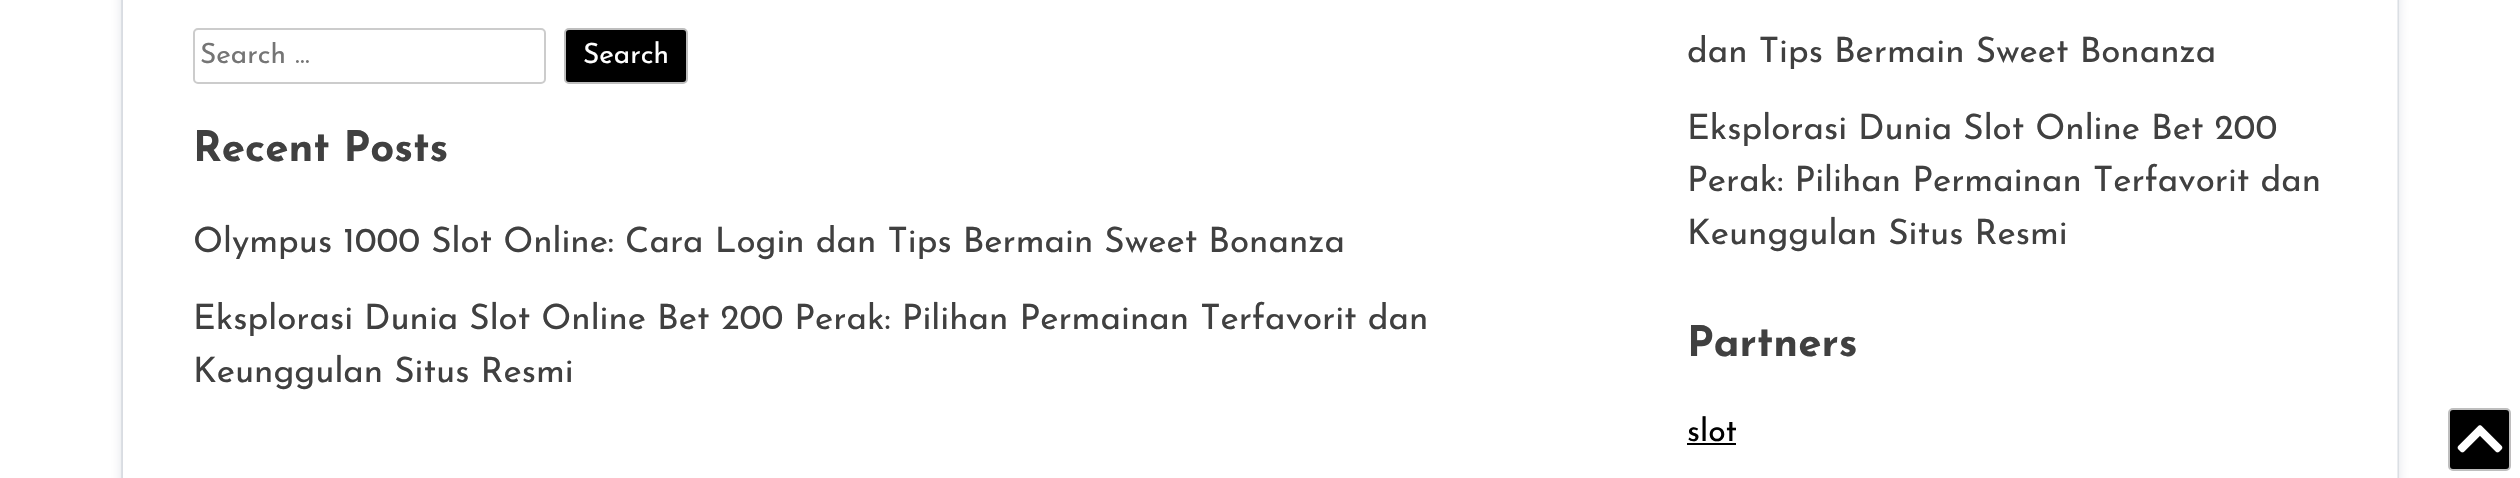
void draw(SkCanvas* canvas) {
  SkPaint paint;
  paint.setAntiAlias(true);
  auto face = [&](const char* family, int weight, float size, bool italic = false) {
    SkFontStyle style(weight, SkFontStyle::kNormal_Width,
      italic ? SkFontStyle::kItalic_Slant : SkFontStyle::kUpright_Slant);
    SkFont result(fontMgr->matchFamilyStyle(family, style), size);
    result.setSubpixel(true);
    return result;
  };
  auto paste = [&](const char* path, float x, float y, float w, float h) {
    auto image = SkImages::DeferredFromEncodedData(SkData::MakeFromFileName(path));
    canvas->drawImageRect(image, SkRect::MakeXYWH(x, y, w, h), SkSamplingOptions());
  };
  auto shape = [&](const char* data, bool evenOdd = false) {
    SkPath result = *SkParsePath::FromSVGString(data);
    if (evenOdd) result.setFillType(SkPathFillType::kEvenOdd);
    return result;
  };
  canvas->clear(0xffffffff);
  paint.setStroke(true);
  paint.setStrokeWidth(2);
  paint.setColor(0xffebedf0);
  canvas->drawRect(SkRect::MakeXYWH(122, -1, 2276, 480), paint);
  canvas->save();
  canvas->clipPath(shape("M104 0H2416V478H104ZM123-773H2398V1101H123Z", true), true);
  paint.setStroke(false);
  paint.setColor(0x40091e42);
  paint.setMaskFilter(SkMaskFilter::MakeBlur(kNormal_SkBlurStyle, 7));
  canvas->drawRect(SkRect::MakeXYWH(126, -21, 2268, 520), paint);
  paint.setMaskFilter(nullptr);
  canvas->restore();
  paint.setStroke(true);
  paint.setColor(0xffcccccc);
  canvas->drawRoundRect(SkRect::MakeXYWH(194, 29, 351, 54), 4, 4, paint);
  paint.setStroke(false);
  paint.setColor(0xff000000);
  canvas->drawRoundRect(SkRect::MakeXYWH(565, 29, 122, 54), 4, 4, paint);
  paint.setStroke(true);
  paint.setColor(0xffbebebe);
  canvas->drawRoundRect(SkRect::MakeXYWH(565, 29, 122, 54), 4, 4, paint);
  paint.setStroke(false);
  paint.setColor(0xff000000);
  canvas->drawRect(SkRect::MakeXYWH(1687, 443, 49, 2), paint);
  canvas->drawRoundRect(SkRect::MakeXYWH(2449, 409, 61, 61), 4, 4, paint);
  paint.setStroke(true);
  paint.setColor(0xffbebebe);
  canvas->drawRoundRect(SkRect::MakeXYWH(2449, 409, 61, 61), 4, 4, paint);
  paste("img/1.png", 2457, 425, 46, 28);
  canvas->save();
  canvas->clipRect(SkRect::MakeXYWH(200, 42, 313, 28));
  auto f0 = face("Josefin Sans", 400, 28);
  paint.setStroke(false);
  paint.setColor(0xff757575);
  canvas->drawString("Search …", 200, 63, f0, paint);
  canvas->restore();
  paint.setColor(0xffffffff);
  canvas->drawString("Search", 583, 63, f0, paint);
  auto f1 = face("Josefin Sans", 700, 42);
  paint.setColor(0xff404040);
  canvas->drawString("Recent Posts", 193, 161, f1, paint);
  auto f2 = face("Josefin Sans", 400, 35);
  {
    const struct { const char* s; float x, y; } items[] = {
      {"Olympus 1000 Slot Online: Cara Login dan Tips Bermain Sweet Bonanza", 193, 252},
      {"Eksplorasi Dunia Slot Online Bet 200 Perak: Pilihan Permainan Terfavorit dan", 193, 329},
      {"Keunggulan Situs Resmi", 193, 382},
      {"dan Tips Bermain Sweet Bonanza", 1687, 62},
      {"Eksplorasi Dunia Slot Online Bet 200", 1687, 139},
      {"Perak: Pilihan Permainan Terfavorit dan", 1687, 191},
      {"Keunggulan Situs Resmi", 1687, 244},
    };
    for (auto [s, x, y] : items) {
      canvas->drawString(s, x, y, f2, paint);
    }
  }
  canvas->drawString("Partners", 1687, 356, f1, paint);
  auto f3 = face("Josefin Sans", 400, 32);
  paint.setColor(0xff000000);
  canvas->drawString("slot", 1687, 441, f3, paint);
}
